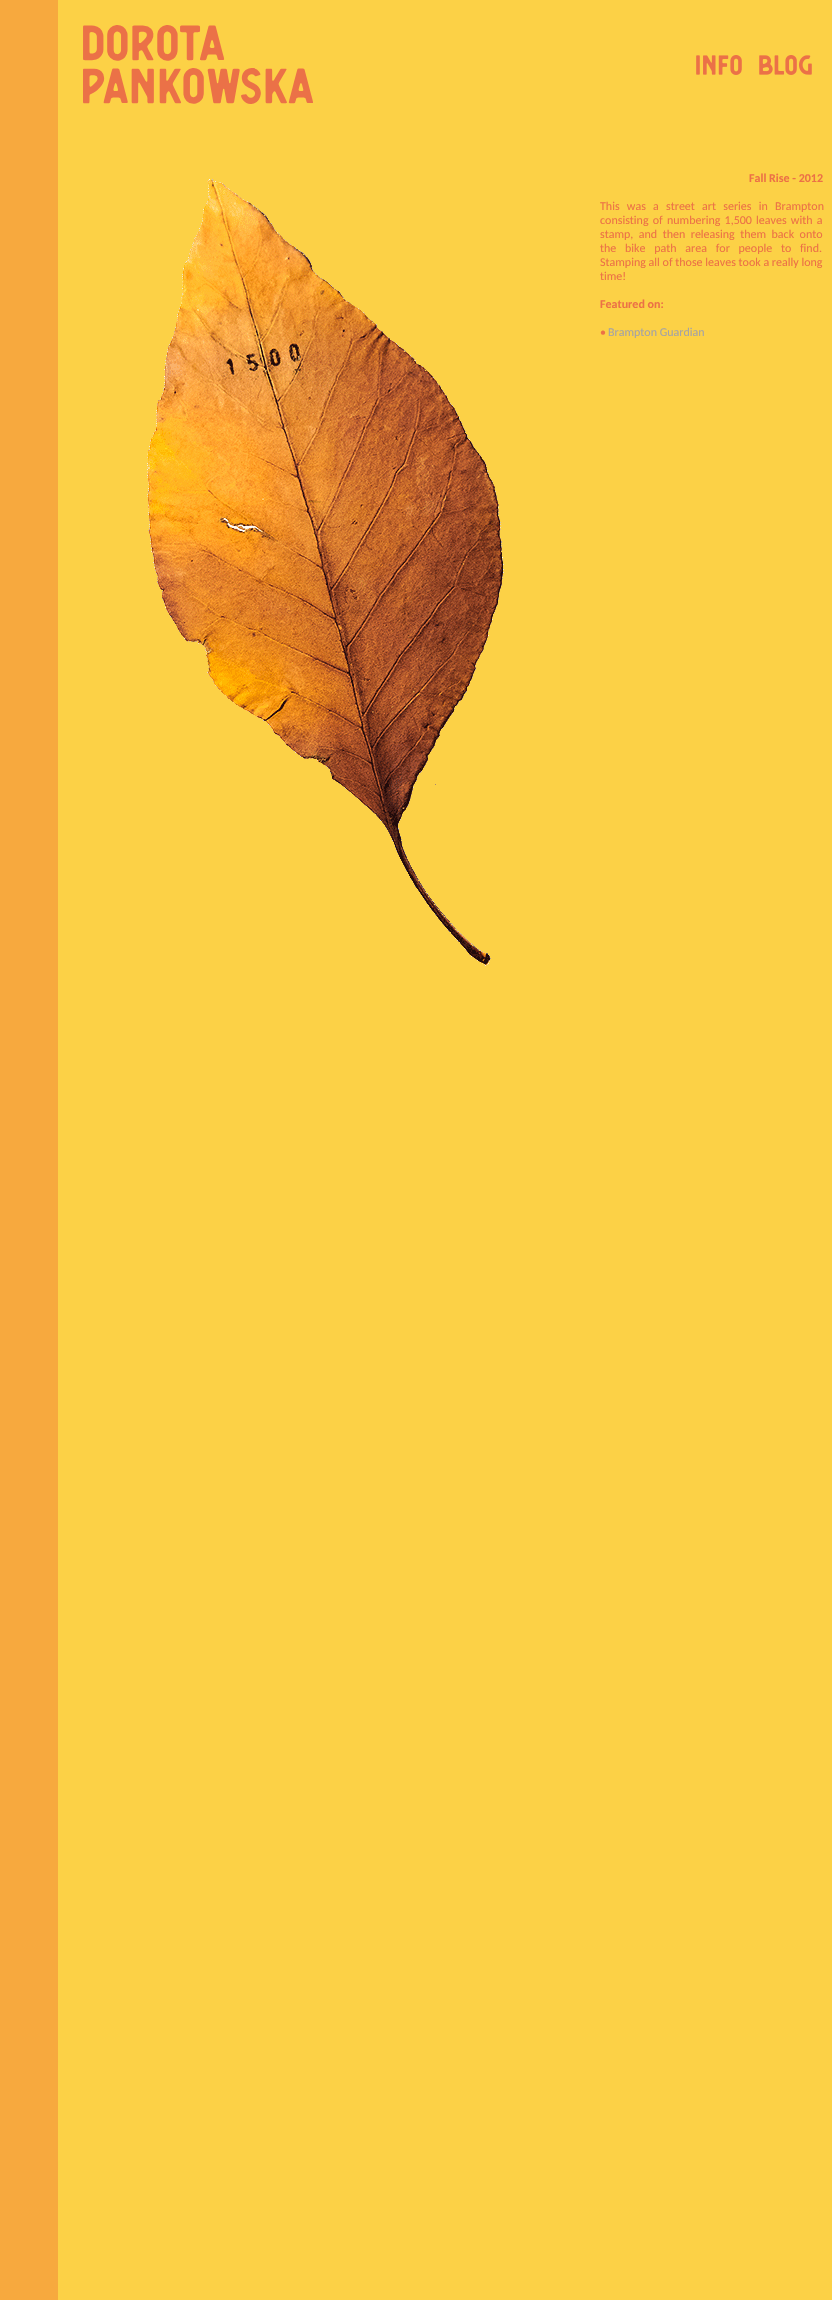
void draw(SkCanvas* canvas) {
  SkPaint paint;
  paint.setAntiAlias(true);
  auto face = [&](const char* family, int weight, float size, bool italic = false) {
    SkFontStyle style(weight, SkFontStyle::kNormal_Width,
      italic ? SkFontStyle::kItalic_Slant : SkFontStyle::kUpright_Slant);
    SkFont result(fontMgr->matchFamilyStyle(family, style), size);
    result.setSubpixel(true);
    return result;
  };
  auto writeSpaced = [&](const char* s, float x, float y, const SkFont& font, const SkPaint& ink, float letter, float word) {
    std::vector<SkGlyphID> glyphs(font.countText(s, strlen(s), SkTextEncoding::kUTF8));
    std::vector<float> xs(glyphs.size());
    font.textToGlyphs(s, strlen(s), SkTextEncoding::kUTF8, glyphs);
    font.getXPos(glyphs, xs, x);
    float extra = 0;
    for (size_t i = 0; i < glyphs.size(); i++) {
      xs[i] += extra;
      extra += letter + word * (glyphs[i] == font.unicharToGlyph(' '));
    }
    canvas->drawTextBlob(SkTextBlob::MakeFromPosHGlyphs(glyphs, xs, y, font), 0, 0, ink);
  };
  auto paste = [&](const char* path, float x, float y, float w, float h) {
    auto image = SkImages::DeferredFromEncodedData(SkData::MakeFromFileName(path));
    canvas->drawImageRect(image, SkRect::MakeXYWH(x, y, w, h), SkSamplingOptions());
  };
  canvas->clear(0xfffcd146);
  paint.setColor(0xfff7a93e);
  canvas->drawRect(SkRect::MakeXYWH(0, 0, 58, 2300), paint);
  paste("img/1.png", 83, 25, 230, 79);
  paste("img/2.png", 696, 55, 46, 20);
  paste("img/3.png", 759, 55, 53, 20);
  paste("img/4.png", 147, 179, 357, 787);
  auto f0 = face("Carlito", 700, 12);
  paint.setColor(0xffec7146);
  canvas->drawString("Fall Rise - 2012", 749, 182, f0, paint);
  auto f1 = face("Carlito", 400, 12);
  writeSpaced("This was a street art series in Brampton", 600, 210, f1, paint, 0, 4.5f);
  writeSpaced("consisting of numbering 1,500 leaves with a", 600, 224, f1, paint, 0, 1.5f);
  writeSpaced("stamp, and then releasing them back onto", 600, 238, f1, paint, 0, 2.75f);
  writeSpaced("the bike path area for people to find.", 600, 252, f1, paint, 0, 6);
  canvas->drawString("Stamping all of those leaves took a really long", 600, 266, f1, paint);
  canvas->drawString("time!", 600, 280, f1, paint);
  canvas->drawString("Featured on:", 600, 308, f0, paint);
  canvas->drawString("•", 600, 336, f1, paint);
  paint.setColor(0xffa4a3a5);
  canvas->drawString("Brampton Guardian", 608, 336, f1, paint);
}
